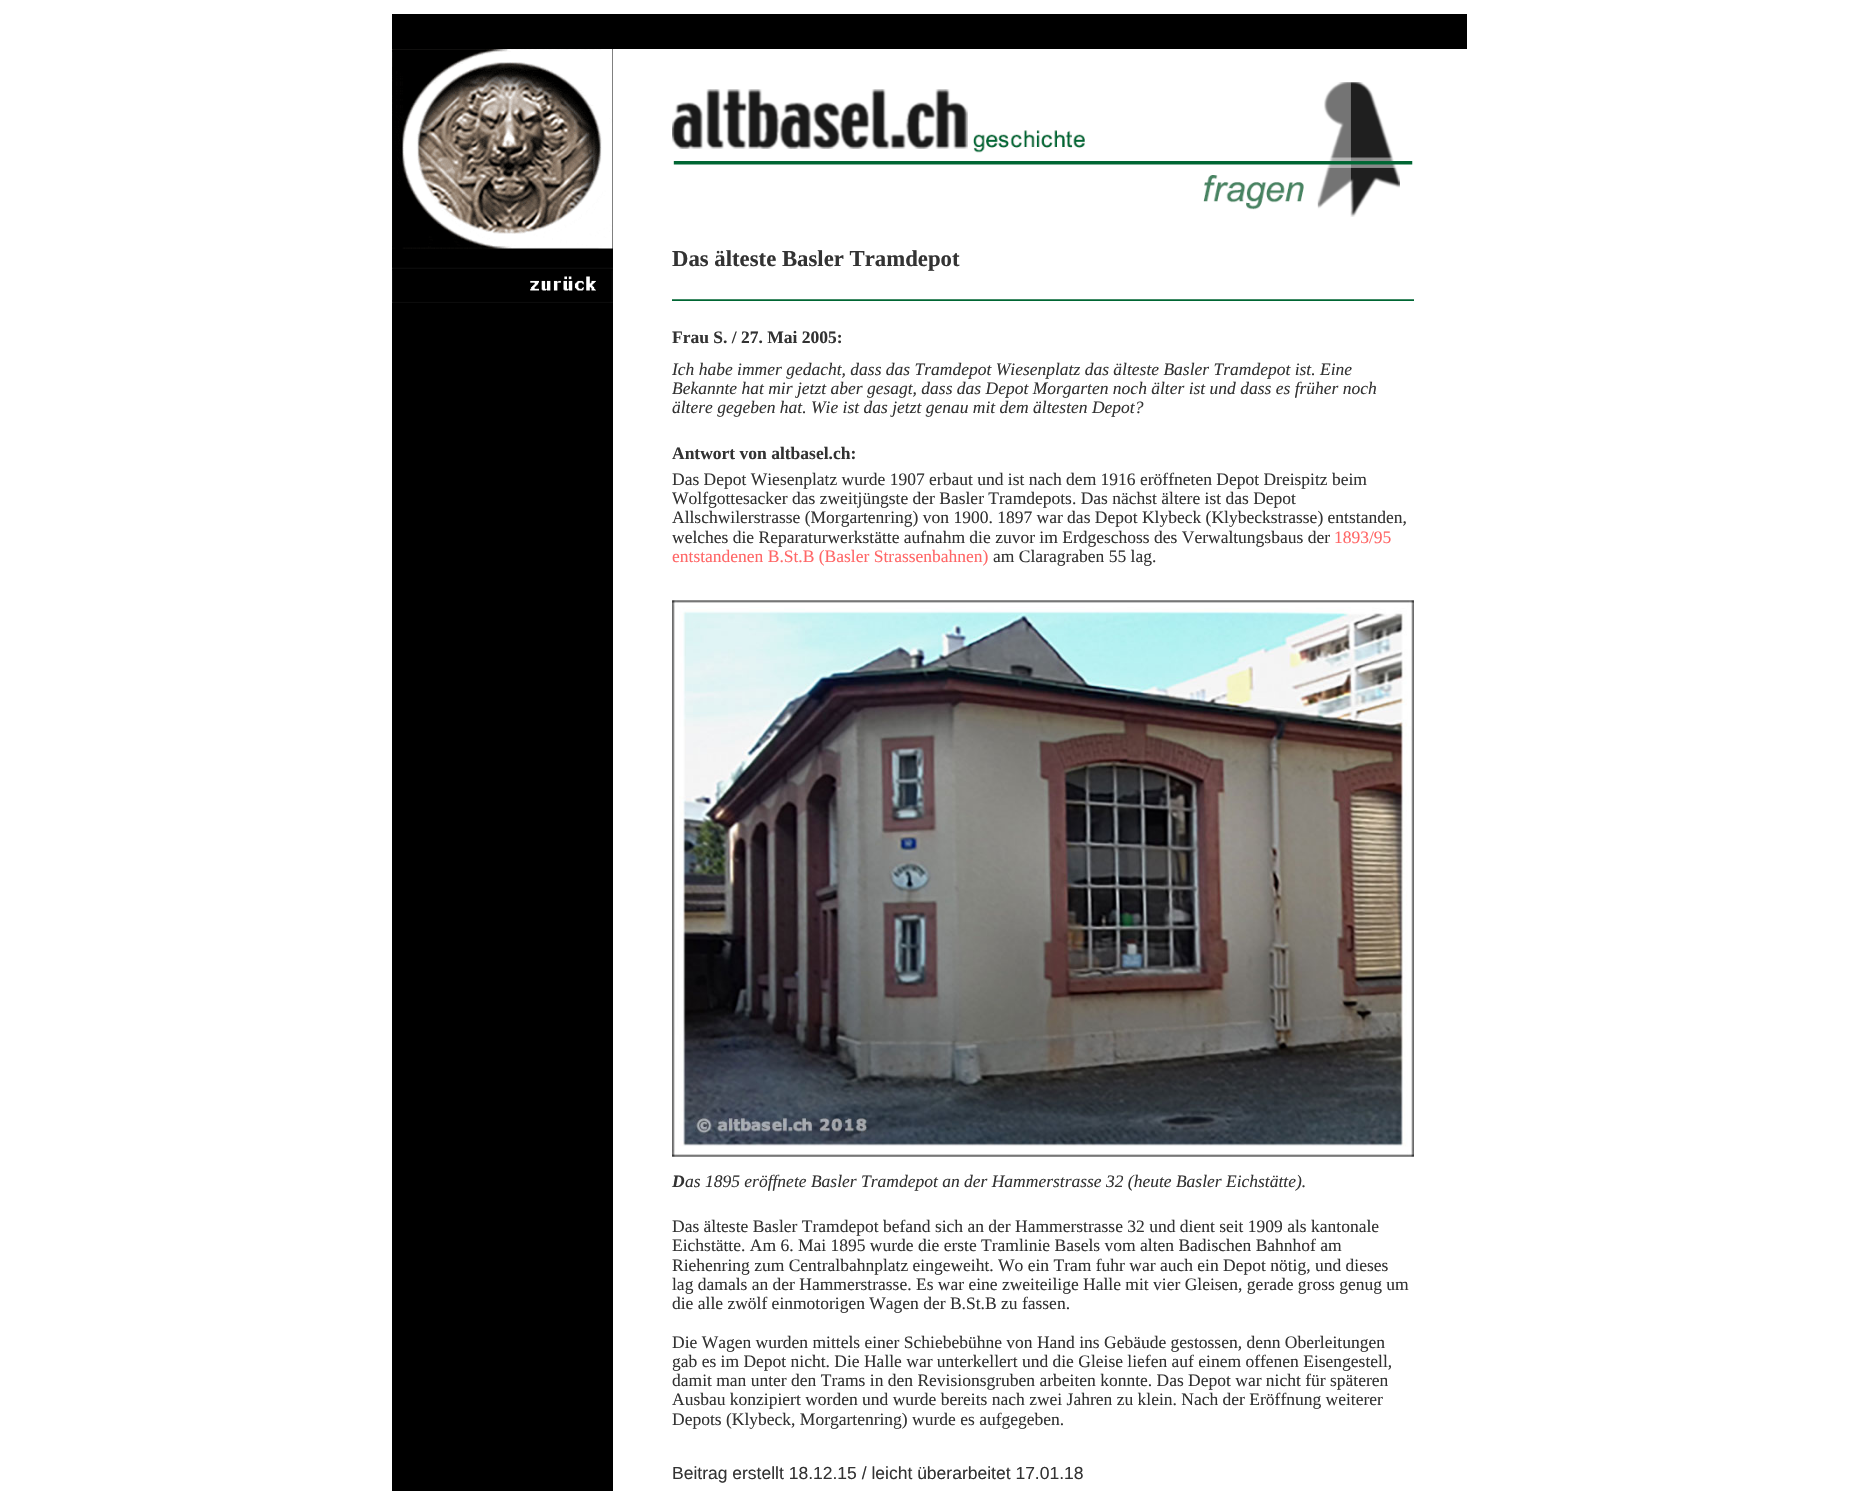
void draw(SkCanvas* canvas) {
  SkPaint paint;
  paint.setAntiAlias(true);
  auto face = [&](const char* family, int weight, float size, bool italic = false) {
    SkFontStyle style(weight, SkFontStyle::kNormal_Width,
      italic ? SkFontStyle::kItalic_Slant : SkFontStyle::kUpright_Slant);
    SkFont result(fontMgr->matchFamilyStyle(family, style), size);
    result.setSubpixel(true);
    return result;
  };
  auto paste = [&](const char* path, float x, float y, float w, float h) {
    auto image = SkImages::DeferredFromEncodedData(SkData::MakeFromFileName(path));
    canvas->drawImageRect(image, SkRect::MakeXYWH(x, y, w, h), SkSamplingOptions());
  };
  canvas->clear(0xffffffff);
  paint.setColor(0xff000000);
  canvas->drawRect(SkRect::MakeXYWH(392, 14, 1075, 35), paint);
  canvas->drawRect(SkRect::MakeXYWH(392, 49, 221, 1442), paint);
  paste("img/1.png", 392, 49, 221, 200);
  paste("img/2.png", 392, 267, 221, 36);
  paste("img/3.png", 672, 82, 741, 135);
  paste("img/4.png", 672, 299, 742, 2);
  paste("img/5.png", 672, 600, 742, 557);
  auto f0 = face("Liberation Serif", 700, 22.75f);
  paint.setColor(0xff333333);
  canvas->drawString("Das älteste Basler Tramdepot", 672, 266, f0, paint);
  auto f1 = face("Liberation Serif", 700, 17.5f);
  canvas->drawString("Frau S. / 27. Mai 2005:", 672, 343, f1, paint);
  auto f2 = face("Liberation Serif", 400, 17.5f, true);
  {
    const struct { const char* s; float x, y; } items[] = {
      {"Ich habe immer gedacht, dass das Tramdepot Wiesenplatz das älteste Basler Tramdepot ist. Eine", 672, 375},
      {"Bekannte hat mir jetzt aber gesagt, dass das Depot Morgarten noch älter ist und dass es früher noch", 672, 394},
      {"ältere gegeben hat. Wie ist das jetzt genau mit dem ältesten Depot?", 672, 413},
    };
    for (auto [s, x, y] : items) {
      canvas->drawString(s, x, y, f2, paint);
    }
  }
  canvas->drawString("Antwort von altbasel.ch:", 672, 459, f1, paint);
  auto f3 = face("Liberation Serif", 400, 17.5f);
  {
    const struct { const char* s; float x, y; } items[] = {
      {"Das Depot Wiesenplatz wurde 1907 erbaut und ist nach dem 1916 eröffneten Depot Dreispitz beim", 672, 485},
      {"Wolfgottesacker das zweitjüngste der Basler Tramdepots. Das nächst ältere ist das Depot", 672, 504},
      {"Allschwilerstrasse (Morgartenring) von 1900. 1897 war das Depot Klybeck (Klybeckstrasse) entstanden,", 672, 523},
      {"welches die Reparaturwerkstätte aufnahm die zuvor im Erdgeschoss des Verwaltungsbaus der", 672, 543},
    };
    for (auto [s, x, y] : items) {
      canvas->drawString(s, x, y, f3, paint);
    }
  }
  paint.setColor(0xffff6666);
  canvas->drawString("1893/95", 1334, 543, f3, paint);
  canvas->drawString("entstandenen B.St.B (Basler Strassenbahnen)", 672, 562, f3, paint);
  paint.setColor(0xff333333);
  canvas->drawString("am Claragraben 55 lag.", 993, 562, f3, paint);
  auto f4 = face("Liberation Serif", 700, 17.5f, true);
  canvas->drawString("D", 672, 1187, f4, paint);
  canvas->drawString("as 1895 eröffnete Basler Tramdepot an der Hammerstrasse 32 (heute Basler Eichstätte).", 685, 1187, f2, paint);
  {
    const struct { const char* s; float x, y; } items[] = {
      {"Das älteste Basler Tramdepot befand sich an der Hammerstrasse 32 und dient seit 1909 als kantonale", 672, 1232},
      {"Eichstätte. Am 6. Mai 1895 wurde die erste Tramlinie Basels vom alten Badischen Bahnhof am", 672, 1251},
      {"Riehenring zum Centralbahnplatz eingeweiht. Wo ein Tram fuhr war auch ein Depot nötig, und dieses", 672, 1271},
      {"lag damals an der Hammerstrasse. Es war eine zweiteilige Halle mit vier Gleisen, gerade gross genug um", 672, 1290},
      {"die alle zwölf einmotorigen Wagen der B.St.B zu fassen.", 672, 1309},
      {"Die Wagen wurden mittels einer Schiebebühne von Hand ins Gebäude gestossen, denn Oberleitungen", 672, 1348},
      {"gab es im Depot nicht. Die Halle war unterkellert und die Gleise liefen auf einem offenen Eisengestell,", 672, 1367},
      {"damit man unter den Trams in den Revisionsgruben arbeiten konnte. Das Depot war nicht für späteren", 672, 1386},
      {"Ausbau konzipiert worden und wurde bereits nach zwei Jahren zu klein. Nach der Eröffnung weiterer", 672, 1405},
      {"Depots (Klybeck, Morgartenring) wurde es aufgegeben.", 672, 1425},
    };
    for (auto [s, x, y] : items) {
      canvas->drawString(s, x, y, f3, paint);
    }
  }
  auto f5 = face("Liberation Sans", 400, 17.5f);
  canvas->drawString("Beitrag erstellt 18.12.15 / leicht überarbeitet 17.01.18", 672, 1479, f5, paint);
}
